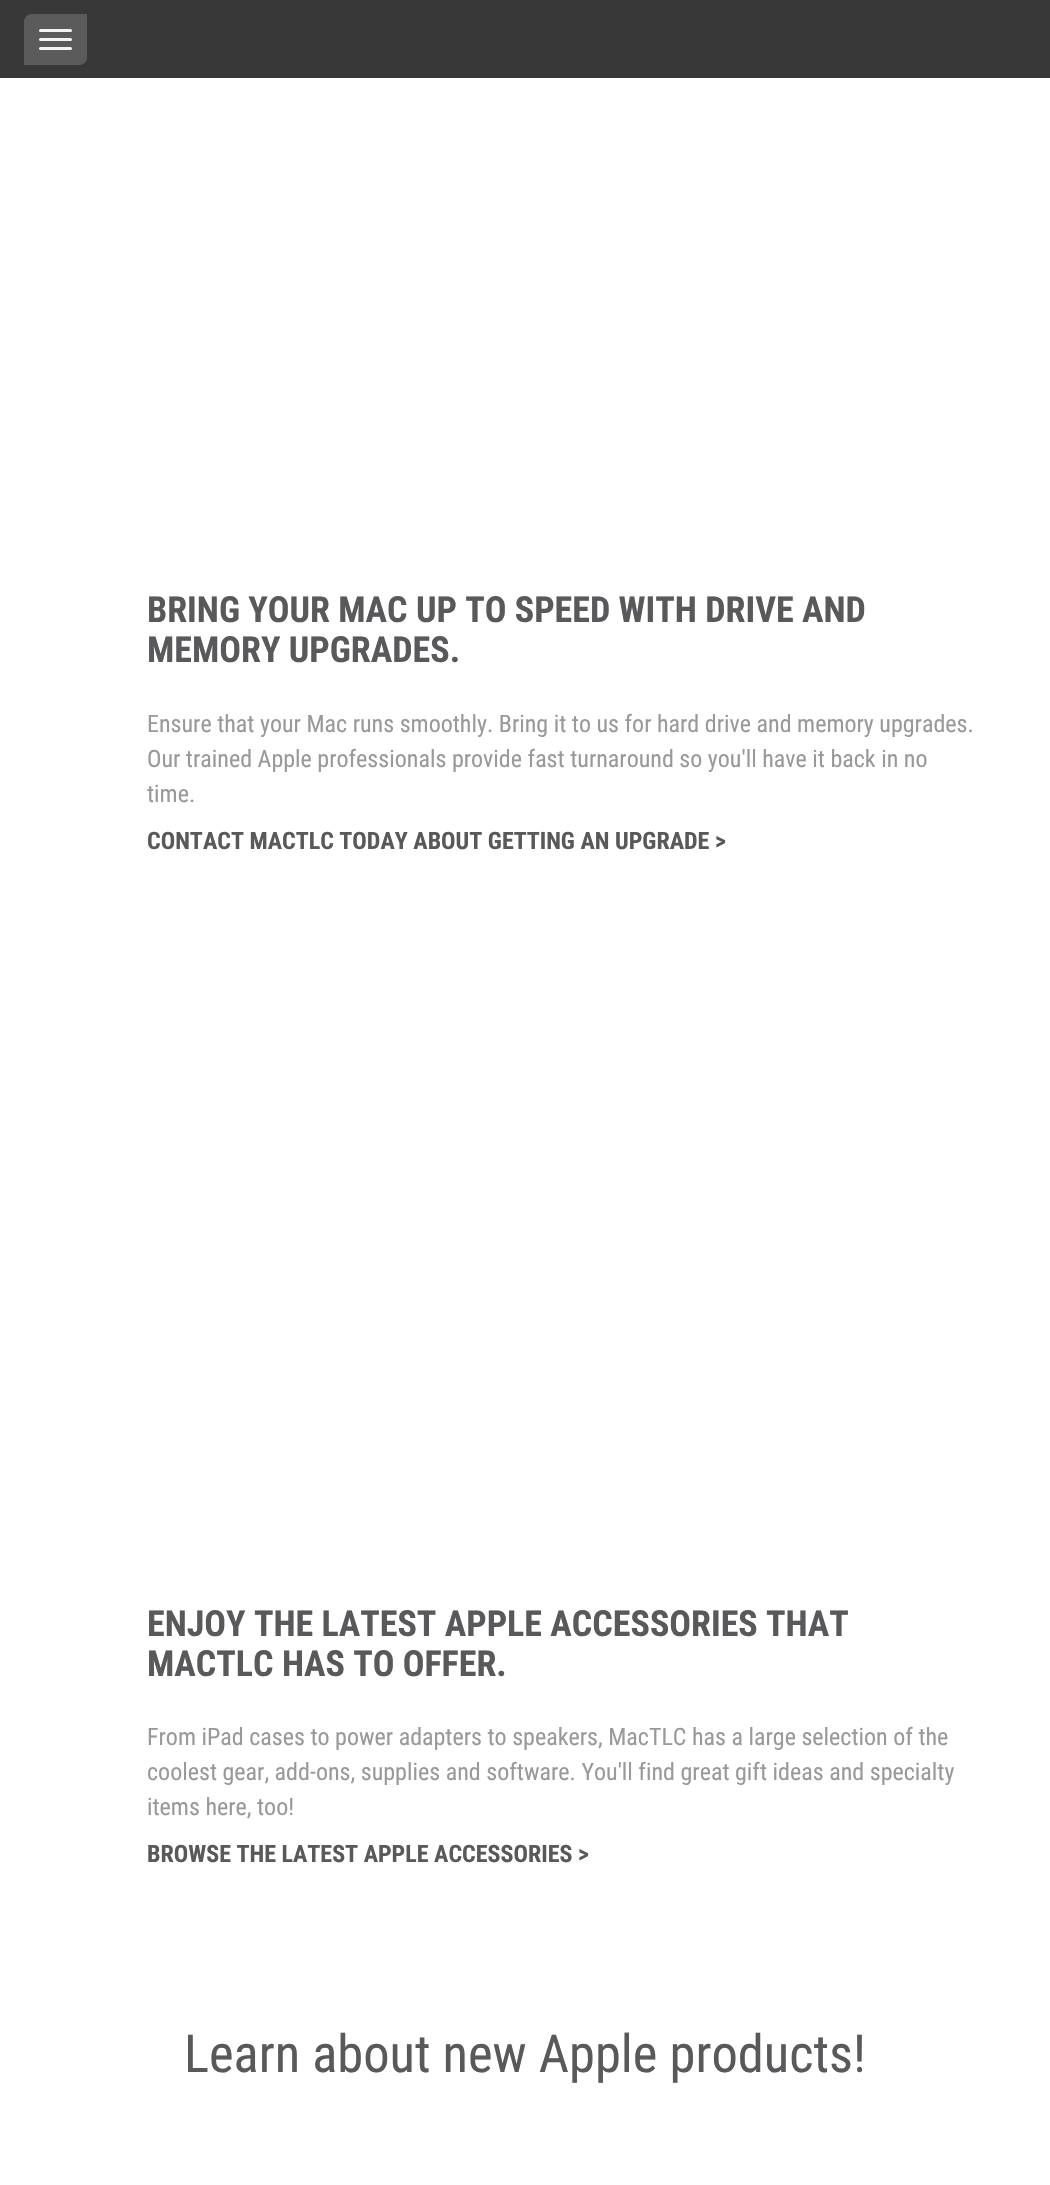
void draw(SkCanvas* canvas) {
  SkPaint paint;
  paint.setAntiAlias(true);
  auto face = [&](const char* family, int weight, float size, bool italic = false) {
    SkFontStyle style(weight, SkFontStyle::kNormal_Width,
      italic ? SkFontStyle::kItalic_Slant : SkFontStyle::kUpright_Slant);
    SkFont result(fontMgr->matchFamilyStyle(family, style), size);
    result.setSubpixel(true);
    return result;
  };
  auto shape = [&](const char* data, bool evenOdd = false) {
    SkPath result = *SkParsePath::FromSVGString(data);
    if (evenOdd) result.setFillType(SkPathFillType::kEvenOdd);
    return result;
  };
  canvas->clear(0xffffffff);
  paint.setColor(0xff383838);
  canvas->drawRect(SkRect::MakeXYWH(0, 0, 1050, 78), paint);
  paint.setColor(0xff5b5b5b);
  canvas->drawPath(shape("M32 14H87V57C87 61.5 83.5 65 79 65H24V22C24 17.5 27.5 14 32 14Z"), paint);
  paint.setColor(0xfff4f4f4);
  canvas->drawRoundRect(SkRect::MakeXYWH(39, 29, 33, 3), 1.5f, 1.5f, paint);
  canvas->drawRoundRect(SkRect::MakeXYWH(39, 38, 33, 3), 1.5f, 1.5f, paint);
  canvas->drawRoundRect(SkRect::MakeXYWH(39, 47, 33, 3), 1.5f, 1.5f, paint);
  auto f0 = face("Roboto Condensed", 700, 36);
  paint.setColor(0xff59595b);
  canvas->drawString("BRING YOUR MAC UP TO SPEED WITH DRIVE AND", 147, 622, f0, paint);
  canvas->drawString("MEMORY UPGRADES.", 147, 662, f0, paint);
  auto f1 = face("Roboto Condensed", 400, 24);
  paint.setColor(0xff98999b);
  {
    const struct { const char* s; float x, y; } items[] = {
      {"Ensure that your Mac runs smoothly. Bring it to us for hard drive and memory upgrades.", 147, 732},
      {"Our trained Apple professionals provide fast turnaround so you'll have it back in no", 147, 767},
      {"time.", 147, 802},
    };
    for (auto [s, x, y] : items) {
      canvas->drawString(s, x, y, f1, paint);
    }
  }
  auto f2 = face("Roboto Condensed", 700, 24);
  paint.setColor(0xff59595b);
  canvas->drawString("CONTACT MACTLC TODAY ABOUT GETTING AN UPGRADE >", 147, 849, f2, paint);
  canvas->drawString("ENJOY THE LATEST APPLE ACCESSORIES THAT", 147, 1636, f0, paint);
  canvas->drawString("MACTLC HAS TO OFFER.", 147, 1676, f0, paint);
  paint.setColor(0xff98999b);
  {
    const struct { const char* s; float x, y; } items[] = {
      {"From iPad cases to power adapters to speakers, MacTLC has a large selection of the", 147, 1745},
      {"coolest gear, add-ons, supplies and software. You'll find great gift ideas and specialty", 147, 1780},
      {"items here, too!", 147, 1815},
    };
    for (auto [s, x, y] : items) {
      canvas->drawString(s, x, y, f1, paint);
    }
  }
  paint.setColor(0xff59595b);
  canvas->drawString("BROWSE THE LATEST APPLE ACCESSORIES >", 147, 1862, f2, paint);
  auto f3 = face("Roboto Condensed", 400, 52.5f);
  canvas->drawString("Learn about new Apple products!", 184, 2072, f3, paint);
}
